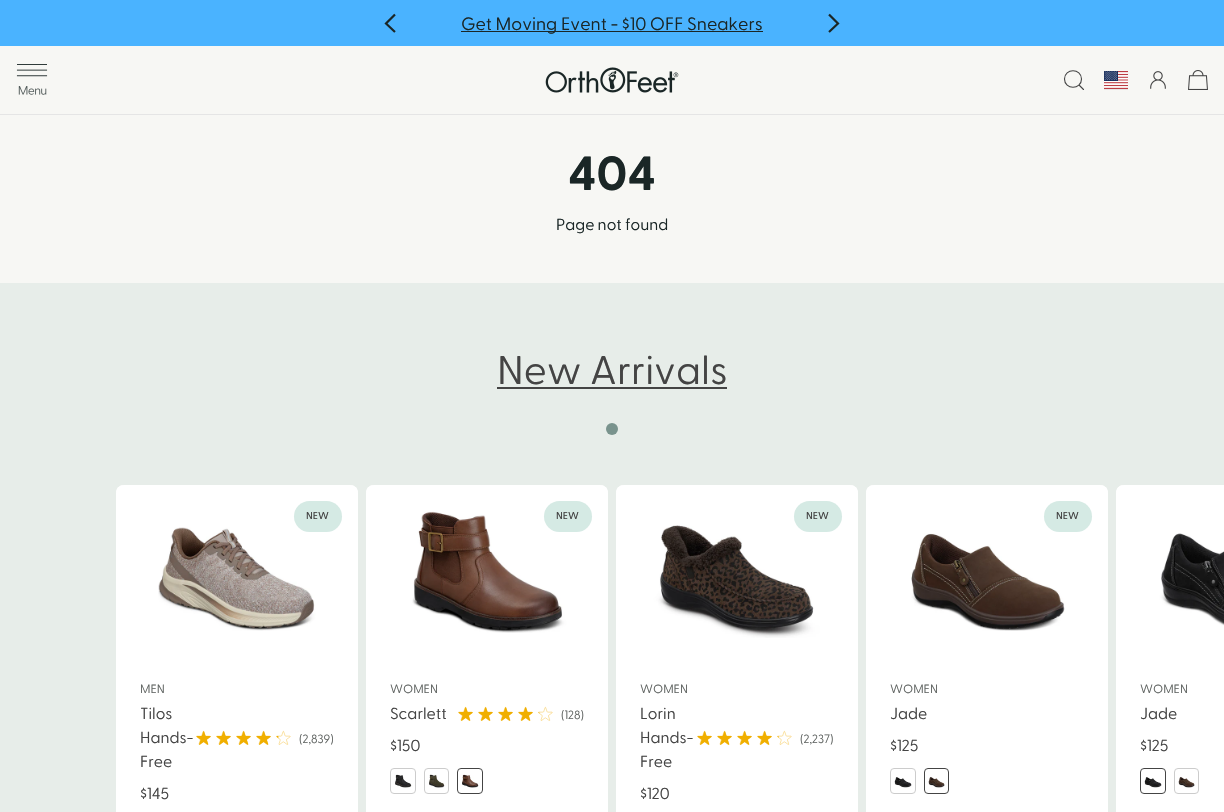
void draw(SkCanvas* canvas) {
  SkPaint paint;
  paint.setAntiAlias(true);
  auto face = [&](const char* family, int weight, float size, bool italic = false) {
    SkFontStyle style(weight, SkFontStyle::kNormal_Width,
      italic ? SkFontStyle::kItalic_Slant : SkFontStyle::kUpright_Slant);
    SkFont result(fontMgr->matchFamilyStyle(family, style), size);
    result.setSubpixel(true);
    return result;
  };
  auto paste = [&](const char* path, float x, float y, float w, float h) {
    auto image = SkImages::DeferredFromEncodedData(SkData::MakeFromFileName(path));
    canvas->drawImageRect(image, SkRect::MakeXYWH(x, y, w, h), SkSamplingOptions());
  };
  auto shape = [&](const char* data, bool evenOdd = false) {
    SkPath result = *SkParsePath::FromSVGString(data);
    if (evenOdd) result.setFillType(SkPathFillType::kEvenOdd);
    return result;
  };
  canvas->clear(0xfff7f7f4);
  paint.setColor(0xff4ab3ff);
  canvas->drawRect(SkRect::MakeXYWH(0, 0, 1224, 46), paint);
  paint.setStroke(true);
  paint.setStrokeWidth(2.2f);
  paint.setColor(0xff1a2626);
  canvas->drawPath(shape("M395 32L386 23.5L395 14.5"), paint);
  canvas->drawPath(shape("M829 32L838 23.5L829 14.5"), paint);
  paint.setStroke(false);
  canvas->drawRect(SkRect::MakeXYWH(461, 31, 302, 1), paint);
  paint.setColor(0xffe5e5e5);
  canvas->drawRect(SkRect::MakeXYWH(0, 114, 1224, 1), paint);
  paste("img/1.png", 16, 64, 32, 31);
  paste("img/2.png", 545, 67, 134, 26);
  paint.setStroke(true);
  paint.setStrokeWidth(1.1f);
  paint.setStrokeCap(SkPaint::kRound_Cap);
  paint.setStrokeJoin(SkPaint::kRound_Join);
  paint.setColor(0xff444444);
  canvas->drawPath(shape("M1079 85L1083.5 89.5M1064.5 79C1064.5 90 1081.5 90 1081.5 79C1081.5 68 1064.5 68 1064.5 79Z"), paint);
  paint.setStroke(false);
  paint.setColor(0xffe5e5e5);
  canvas->drawRect(SkRect::MakeXYWH(1104, 89, 24, 1), paint);
  paste("img/3.png", 1104, 71, 24, 18);
  paste("img/4.png", 1150, 71, 16, 18);
  paste("img/5.png", 1188, 70, 20, 20);
  paint.setColor(0xffe7ede9);
  canvas->drawRect(SkRect::MakeXYWH(0, 283, 1224, 529), paint);
  paint.setColor(0xff444444);
  canvas->drawRect(SkRect::MakeXYWH(497, 387, 230, 2), paint);
  paint.setColor(0xff79938d);
  canvas->drawCircle(612, 429, 6, paint);
  paint.setColor(0xffffffff);
  canvas->drawRoundRect(SkRect::MakeXYWH(116, 485, 242, 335), 8, 8, paint);
  canvas->drawPath(shape("M124 485H350C354.5 485 358 488.5 358 493V656H116V493C116 488.5 119.5 485 124 485Z"), paint);
  paste("img/6.png", 117, 487, 240, 144);
  paint.setColor(0xffd5eae4);
  canvas->drawRoundRect(SkRect::MakeXYWH(294, 501, 48, 31), 15.5f, 15.5f, paint);
  paste("img/7.png", 196, 730, 15, 15);
  paste("img/7.png", 216, 730, 15, 15);
  paste("img/7.png", 236, 730, 15, 15);
  paste("img/7.png", 256, 730, 15, 15);
  paste("img/8.png", 276, 730, 15, 15);
  paint.setColor(0xffffffff);
  canvas->drawRoundRect(SkRect::MakeXYWH(366, 485, 242, 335), 8, 8, paint);
  canvas->drawPath(shape("M374 485H600C604.5 485 608 488.5 608 493V656H366V493C366 488.5 369.5 485 374 485Z"), paint);
  paste("img/9.png", 367, 487, 240, 146);
  paint.setColor(0xffd5eae4);
  canvas->drawRoundRect(SkRect::MakeXYWH(544, 501, 48, 31), 15.5f, 15.5f, paint);
  paste("img/7.png", 458, 706, 15, 15);
  paste("img/7.png", 478, 706, 15, 15);
  paste("img/7.png", 498, 706, 15, 15);
  paste("img/7.png", 518, 706, 15, 15);
  paste("img/10.png", 538, 706, 15, 15);
  paste("img/11.png", 395, 774, 17, 14);
  paint.setStroke(true);
  paint.setStrokeWidth(1);
  paint.setStrokeCap(SkPaint::kButt_Cap);
  paint.setStrokeJoin(SkPaint::kMiter_Join);
  paint.setColor(0xffcccccc);
  canvas->drawRoundRect(SkRect::MakeXYWH(390.5f, 768.5f, 25, 25), 3.5f, 3.5f, paint);
  paste("img/12.png", 429, 774, 16, 14);
  canvas->drawRoundRect(SkRect::MakeXYWH(424.5f, 768.5f, 24, 25), 3.5f, 3.5f, paint);
  paste("img/13.png", 462, 774, 17, 14);
  paint.setColor(0xff444444);
  canvas->drawRoundRect(SkRect::MakeXYWH(457.5f, 768.5f, 25, 25), 3.5f, 3.5f, paint);
  paint.setStroke(false);
  paint.setColor(0xffffffff);
  canvas->drawRoundRect(SkRect::MakeXYWH(616, 485, 242, 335), 8, 8, paint);
  canvas->drawPath(shape("M624 485H850C854.5 485 858 488.5 858 493V656H616V493C616 488.5 619.5 485 624 485Z"), paint);
  paste("img/14.png", 617, 487, 240, 151);
  paint.setColor(0xffd5eae4);
  canvas->drawRoundRect(SkRect::MakeXYWH(794, 501, 48, 31), 15.5f, 15.5f, paint);
  paste("img/7.png", 697, 730, 15, 15);
  paste("img/7.png", 717, 730, 15, 15);
  paste("img/7.png", 737, 730, 15, 15);
  paste("img/7.png", 757, 730, 15, 15);
  paste("img/15.png", 777, 730, 15, 15);
  paint.setColor(0xffffffff);
  canvas->drawRoundRect(SkRect::MakeXYWH(866, 485, 242, 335), 8, 8, paint);
  canvas->drawPath(shape("M874 485H1100C1104.5 485 1108 488.5 1108 493V656H866V493C866 488.5 869.5 485 874 485Z"), paint);
  paste("img/16.png", 867, 487, 240, 144);
  paint.setColor(0xffd5eae4);
  canvas->drawRoundRect(SkRect::MakeXYWH(1044, 501, 48, 31), 15.5f, 15.5f, paint);
  paste("img/17.png", 894, 777, 18, 11);
  paint.setStroke(true);
  paint.setColor(0xffcccccc);
  canvas->drawRoundRect(SkRect::MakeXYWH(890.5f, 768.5f, 25, 25), 3.5f, 3.5f, paint);
  paste("img/18.png", 928, 776, 17, 12);
  paint.setColor(0xff444444);
  canvas->drawRoundRect(SkRect::MakeXYWH(924.5f, 768.5f, 24, 25), 3.5f, 3.5f, paint);
  paint.setStroke(false);
  paint.setColor(0xffffffff);
  canvas->drawPath(shape("M1124 485H1224V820H1124C1119.5 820 1116 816.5 1116 812V493C1116 488.5 1119.5 485 1124 485Z"), paint);
  canvas->drawPath(shape("M1124 485H1224V656H1116V493C1116 488.5 1119.5 485 1124 485Z"), paint);
  paste("img/19.png", 1117, 487, 107, 139);
  paste("img/17.png", 1144, 777, 18, 11);
  paint.setStroke(true);
  paint.setColor(0xff444444);
  canvas->drawRoundRect(SkRect::MakeXYWH(1140.5f, 768.5f, 25, 25), 3.5f, 3.5f, paint);
  paste("img/18.png", 1178, 776, 17, 12);
  paint.setColor(0xffcccccc);
  canvas->drawRoundRect(SkRect::MakeXYWH(1174.5f, 768.5f, 24, 25), 3.5f, 3.5f, paint);
  auto f0 = face("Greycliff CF", 400, 18);
  paint.setStroke(false);
  paint.setColor(0xff1a2626);
  canvas->drawString("Get Moving Event - $10 OFF Sneakers", 461, 30, f0, paint);
  auto f1 = face("Greycliff CF", 700, 48);
  canvas->drawString("404", 568, 190, f1, paint);
  auto f2 = face("Greycliff CF", 400, 16);
  canvas->drawString("Page not found", 556, 230, f2, paint);
  auto f3 = face("Greycliff CF", 400, 40);
  paint.setColor(0xff444444);
  canvas->drawString("New Arrivals", 497, 384, f3, paint);
  auto f4 = face("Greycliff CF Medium", 500, 10);
  canvas->drawString("NEW", 306, 519, f4, paint);
  auto f5 = face("Greycliff CF", 400, 12);
  paint.setColor(0xff616563);
  canvas->drawString("MEN", 140, 693, f5, paint);
  paint.setColor(0xff444444);
  {
    const struct { const char* s; float x, y; } items[] = {
      {"Tilos", 140, 719},
      {"Hands-", 140, 743},
      {"Free", 140, 767},
    };
    for (auto [s, x, y] : items) {
      canvas->drawString(s, x, y, f2, paint);
    }
  }
  paint.setColor(0xff616563);
  canvas->drawString("(2,839)", 299, 743, f5, paint);
  paint.setColor(0xff444444);
  canvas->drawString("$145", 140, 799, f2, paint);
  canvas->drawString("NEW", 556, 519, f4, paint);
  paint.setColor(0xff616563);
  canvas->drawString("WOMEN", 390, 693, f5, paint);
  paint.setColor(0xff444444);
  canvas->drawString("Scarlett", 390, 719, f2, paint);
  paint.setColor(0xff616563);
  canvas->drawString("(128)", 561, 719, f5, paint);
  paint.setColor(0xff444444);
  canvas->drawString("$150", 390, 751, f2, paint);
  canvas->drawString("NEW", 806, 519, f4, paint);
  paint.setColor(0xff616563);
  canvas->drawString("WOMEN", 640, 693, f5, paint);
  paint.setColor(0xff444444);
  {
    const struct { const char* s; float x, y; } items[] = {
      {"Lorin", 640, 719},
      {"Hands-", 640, 743},
      {"Free", 640, 767},
    };
    for (auto [s, x, y] : items) {
      canvas->drawString(s, x, y, f2, paint);
    }
  }
  paint.setColor(0xff616563);
  canvas->drawString("(2,237)", 800, 743, f5, paint);
  paint.setColor(0xff444444);
  canvas->drawString("$120", 640, 799, f2, paint);
  canvas->drawString("NEW", 1056, 519, f4, paint);
  paint.setColor(0xff616563);
  canvas->drawString("WOMEN", 890, 693, f5, paint);
  paint.setColor(0xff444444);
  canvas->drawString("Jade", 890, 719, f2, paint);
  canvas->drawString("$125", 890, 751, f2, paint);
  paint.setColor(0xff616563);
  canvas->drawString("WOMEN", 1140, 693, f5, paint);
  paint.setColor(0xff444444);
  canvas->drawString("Jade", 1140, 719, f2, paint);
  canvas->drawString("$125", 1140, 751, f2, paint);
}
